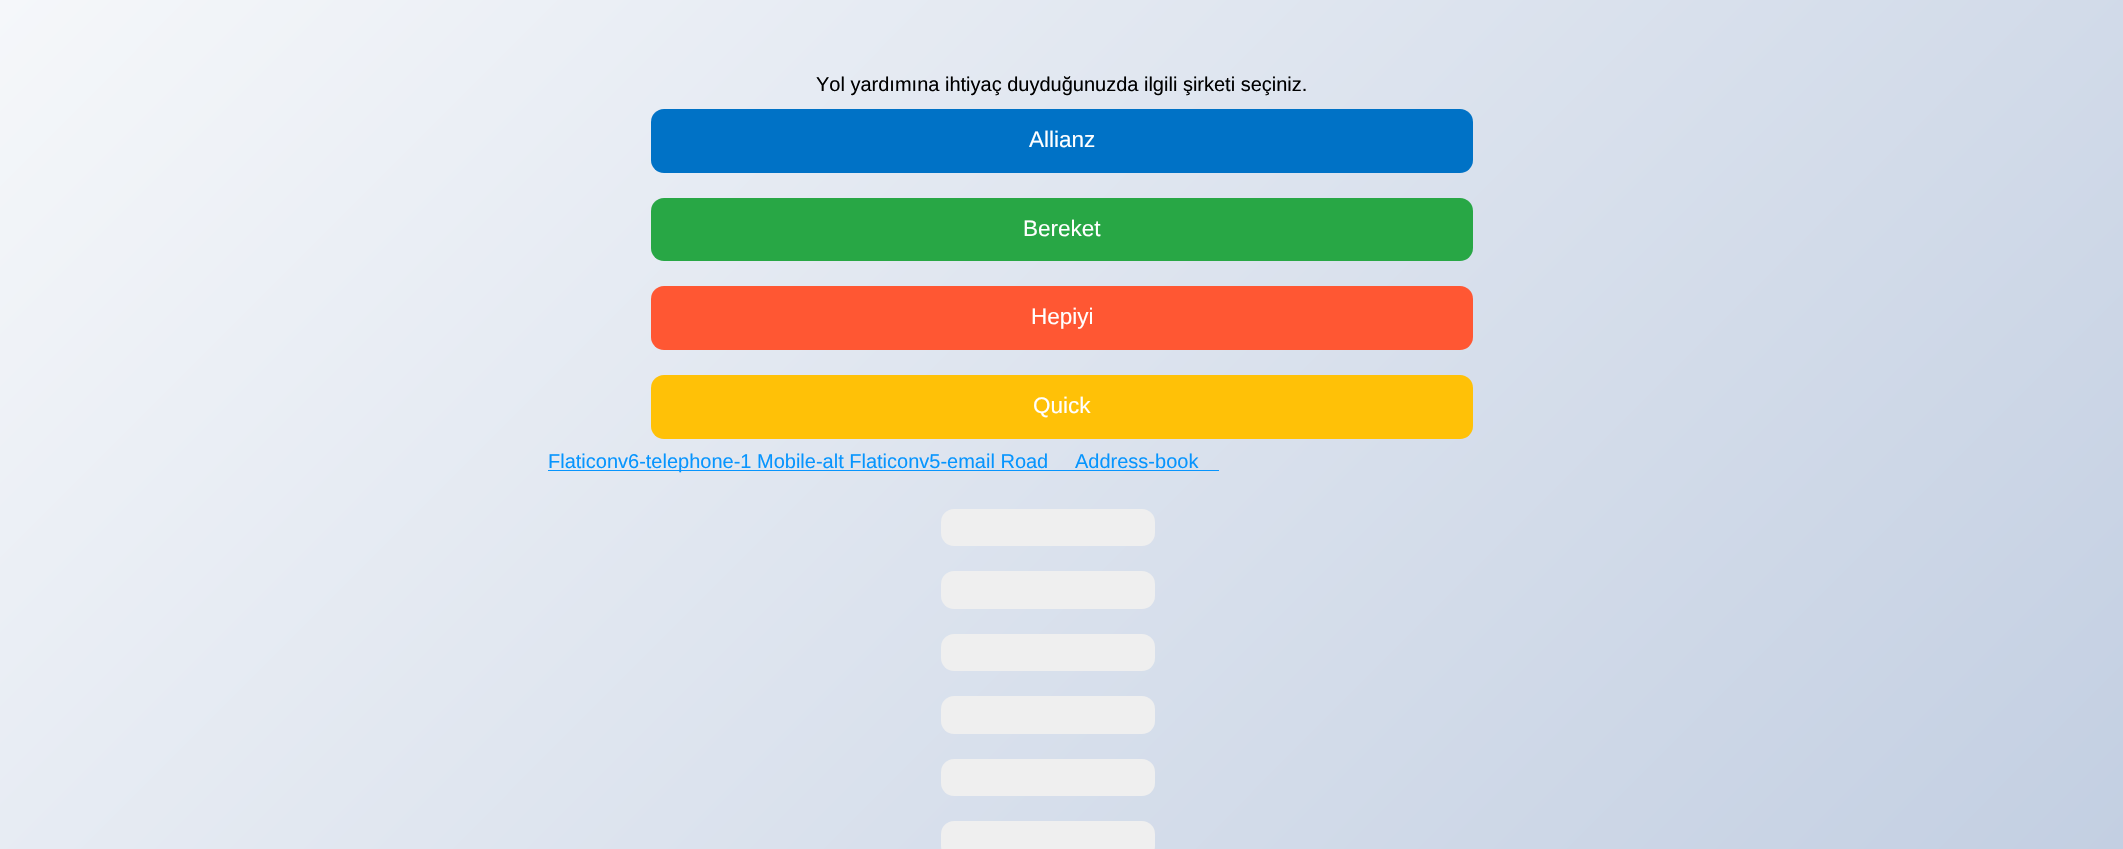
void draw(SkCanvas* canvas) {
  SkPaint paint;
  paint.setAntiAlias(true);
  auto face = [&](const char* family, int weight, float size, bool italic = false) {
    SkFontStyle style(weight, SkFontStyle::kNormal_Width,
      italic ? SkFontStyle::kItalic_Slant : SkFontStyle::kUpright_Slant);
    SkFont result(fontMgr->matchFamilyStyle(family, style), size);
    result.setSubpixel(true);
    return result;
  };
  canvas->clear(0xffffffff);
  {
    const SkColor colors[] = {0xfff5f7fa, 0xffc3cfe2};
    const float stops[] = {0, 1};
    const SkPoint ends[] = {{318, -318}, {1805, 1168}};
    paint.setShader(SkGradientShader::MakeLinear(ends, colors, stops, 2, SkTileMode::kClamp));
    paint.setAlpha(255);
  }
  canvas->drawRect(SkRect::MakeXYWH(0, 0, 2123, 849), paint);
  paint.setShader(nullptr);
  paint.setColor(0xff0072c6);
  canvas->drawRoundRect(SkRect::MakeXYWH(651, 109, 822, 64), 13, 13, paint);
  paint.setColor(0xff28a745);
  canvas->drawRoundRect(SkRect::MakeXYWH(651, 198, 822, 63), 13, 13, paint);
  paint.setColor(0xffff5733);
  canvas->drawRoundRect(SkRect::MakeXYWH(651, 286, 822, 64), 13, 13, paint);
  paint.setColor(0xffffc107);
  canvas->drawRoundRect(SkRect::MakeXYWH(651, 375, 822, 64), 13, 13, paint);
  paint.setColor(0xff0795fe);
  canvas->drawRect(SkRect::MakeXYWH(548, 470, 671, 1), paint);
  paint.setColor(0xffefefef);
  canvas->drawRoundRect(SkRect::MakeXYWH(941, 509, 214, 37), 13, 13, paint);
  canvas->drawRoundRect(SkRect::MakeXYWH(941, 571, 214, 38), 13, 13, paint);
  canvas->drawRoundRect(SkRect::MakeXYWH(941, 634, 214, 37), 13, 13, paint);
  canvas->drawRoundRect(SkRect::MakeXYWH(941, 696, 214, 38), 13, 13, paint);
  canvas->drawRoundRect(SkRect::MakeXYWH(941, 759, 214, 37), 13, 13, paint);
  canvas->drawRoundRect(SkRect::MakeXYWH(941, 821, 214, 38), 13, 13, paint);
  auto f0 = face("Liberation Sans", 400, 20);
  paint.setColor(0xff000000);
  canvas->drawString("Yol yardımına ihtiyaç duyduğunuzda ilgili şirketi seçiniz.", 816, 91, f0, paint);
  auto f1 = face("Liberation Sans", 400, 22.5f);
  paint.setColor(0xffffffff);
  {
    const struct { const char* s; float x, y; } items[] = {
      {"Allianz", 1029, 147},
      {"Bereket", 1023, 236},
      {"Hepiyi", 1031, 324},
      {"Quick", 1033, 413},
    };
    for (auto [s, x, y] : items) {
      canvas->drawString(s, x, y, f1, paint);
    }
  }
  paint.setColor(0xff0795fe);
  canvas->drawString("Flaticonv6-telephone-1 Mobile-alt Flaticonv5-email Road", 548, 468, f0, paint);
  canvas->drawString("Address-book", 1075, 468, f0, paint);
}
